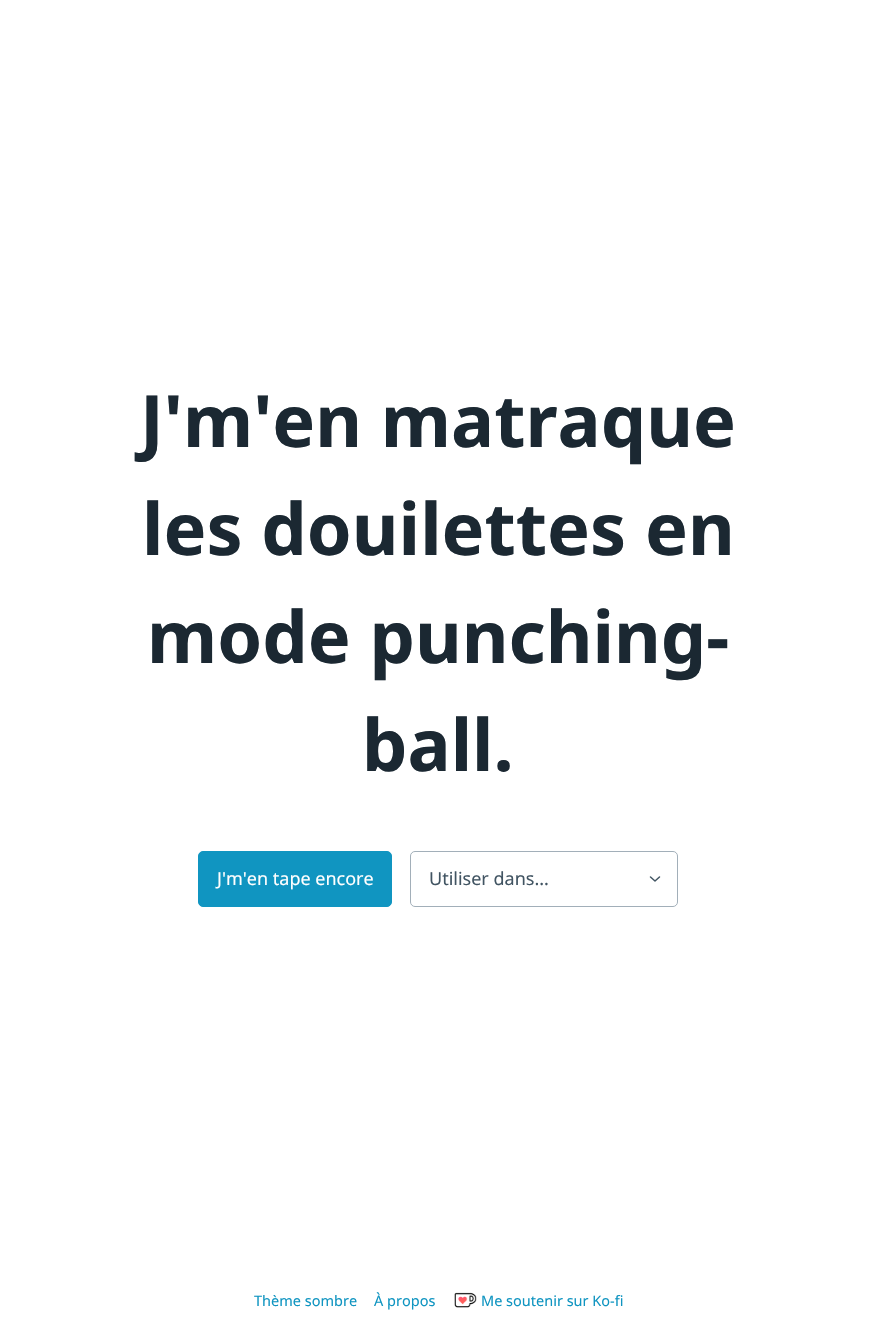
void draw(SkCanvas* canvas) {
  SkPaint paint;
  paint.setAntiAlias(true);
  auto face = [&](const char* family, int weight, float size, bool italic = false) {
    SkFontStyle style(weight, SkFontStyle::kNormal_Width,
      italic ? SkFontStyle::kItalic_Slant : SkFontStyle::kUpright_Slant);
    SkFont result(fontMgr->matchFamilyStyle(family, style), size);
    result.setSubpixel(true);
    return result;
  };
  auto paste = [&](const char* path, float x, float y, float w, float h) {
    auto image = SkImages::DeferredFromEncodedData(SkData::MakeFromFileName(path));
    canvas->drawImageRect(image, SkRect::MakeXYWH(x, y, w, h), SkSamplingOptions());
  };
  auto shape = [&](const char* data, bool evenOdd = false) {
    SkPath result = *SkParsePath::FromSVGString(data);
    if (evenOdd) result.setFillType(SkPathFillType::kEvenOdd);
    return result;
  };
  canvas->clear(0xffffffff);
  paint.setColor(0xff1095c1);
  canvas->drawRoundRect(SkRect::MakeXYWH(198.5f, 851.5f, 193, 55), 4.5f, 4.5f, paint);
  paint.setStroke(true);
  paint.setStrokeWidth(1);
  canvas->drawRoundRect(SkRect::MakeXYWH(198.5f, 851.5f, 193, 55), 4.5f, 4.5f, paint);
  paint.setStrokeWidth(1.5f);
  paint.setStrokeCap(SkPaint::kRound_Cap);
  paint.setStrokeJoin(SkPaint::kRound_Join);
  paint.setColor(0xff415462);
  canvas->drawPath(shape("M650.5 877L655 881L659.5 877"), paint);
  paint.setStrokeWidth(1);
  paint.setStrokeCap(SkPaint::kButt_Cap);
  paint.setStrokeJoin(SkPaint::kMiter_Join);
  paint.setColor(0xffa2afb9);
  canvas->drawRoundRect(SkRect::MakeXYWH(410.5f, 851.5f, 267, 55), 4.5f, 4.5f, paint);
  paste("img/1.png", 454, 1292, 23, 16);
  auto f0 = face("Noto Sans", 700, 72);
  paint.setStroke(false);
  paint.setColor(0xff1b2832);
  {
    const struct { const char* s; float x, y; } items[] = {
      {"J'm'en matraque", 140, 447},
      {"les douilettes en", 142, 555},
      {"mode punching-", 147, 663},
      {"ball.", 362, 771},
    };
    for (auto [s, x, y] : items) {
      canvas->drawString(s, x, y, f0, paint);
    }
  }
  auto f1 = face("Noto Sans", 400, 18);
  paint.setColor(0xffffffff);
  canvas->drawString("J'm'en tape encore", 217, 885, f1, paint);
  paint.setColor(0xff415462);
  canvas->drawString("Utiliser dans...", 429, 885, f1, paint);
  auto f2 = face("Noto Sans", 400, 14.5f);
  paint.setColor(0xff1095c1);
  {
    const struct { const char* s; float x, y; } items[] = {
      {"Thème sombre", 254, 1306},
      {"À propos", 374, 1306},
      {"Me soutenir sur Ko-fi", 481, 1306},
    };
    for (auto [s, x, y] : items) {
      canvas->drawString(s, x, y, f2, paint);
    }
  }
}
